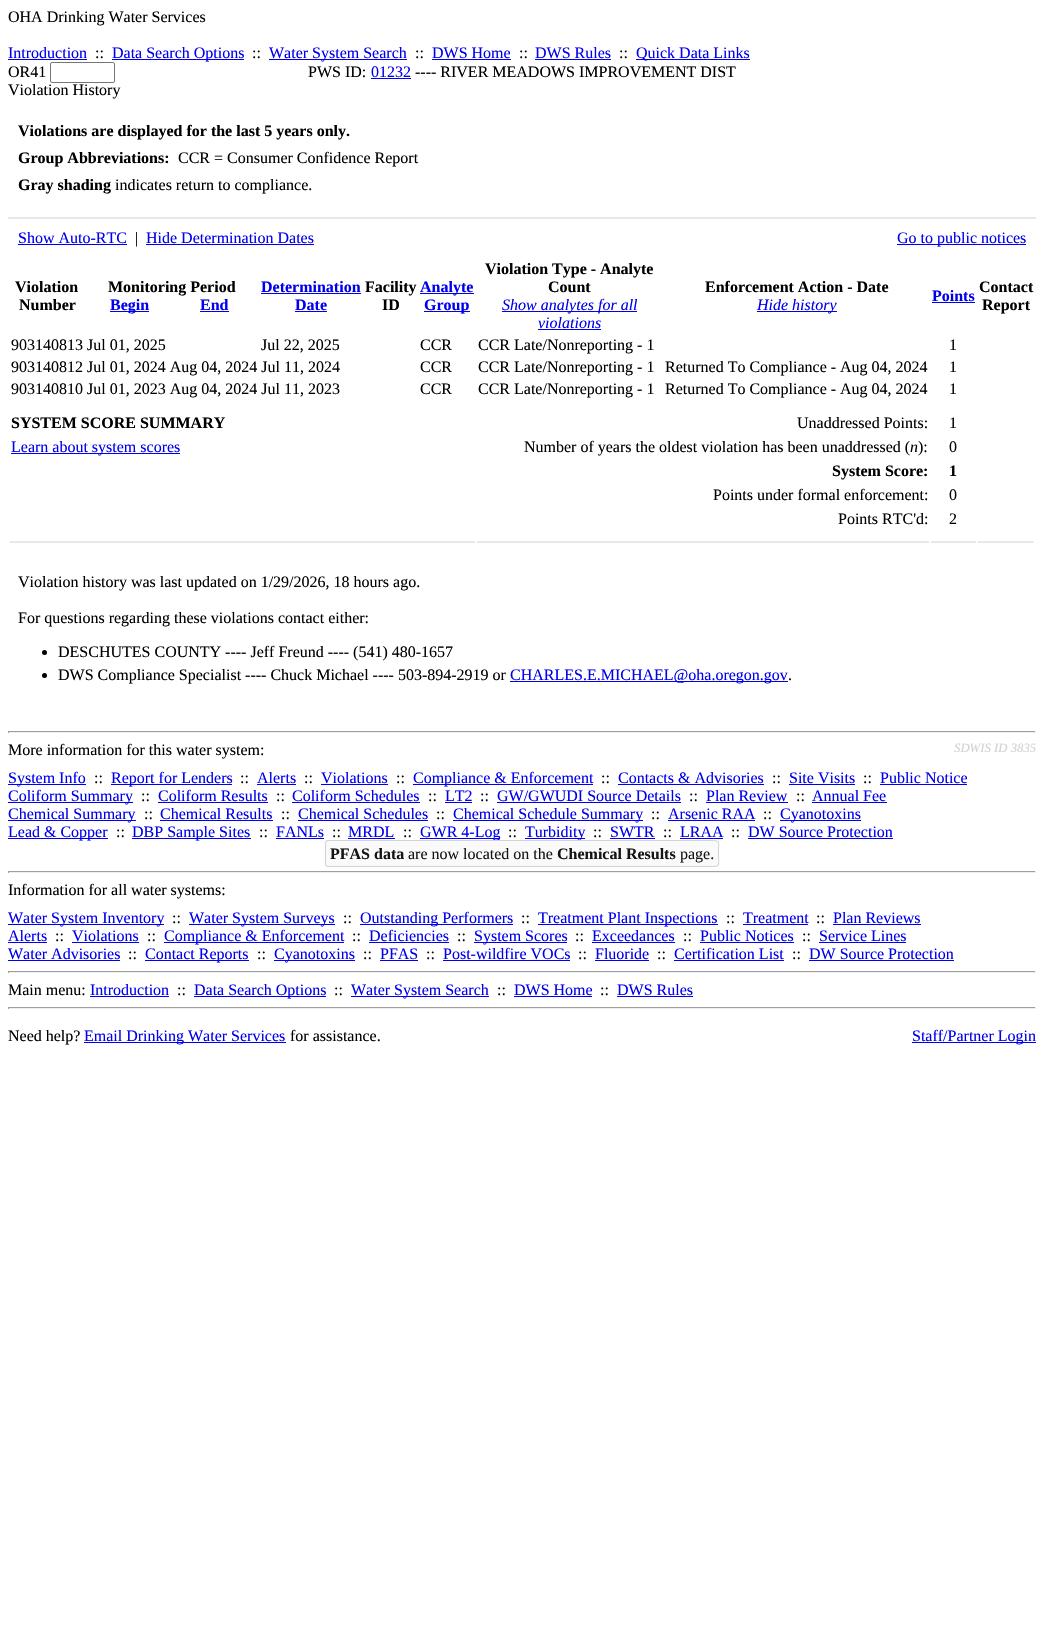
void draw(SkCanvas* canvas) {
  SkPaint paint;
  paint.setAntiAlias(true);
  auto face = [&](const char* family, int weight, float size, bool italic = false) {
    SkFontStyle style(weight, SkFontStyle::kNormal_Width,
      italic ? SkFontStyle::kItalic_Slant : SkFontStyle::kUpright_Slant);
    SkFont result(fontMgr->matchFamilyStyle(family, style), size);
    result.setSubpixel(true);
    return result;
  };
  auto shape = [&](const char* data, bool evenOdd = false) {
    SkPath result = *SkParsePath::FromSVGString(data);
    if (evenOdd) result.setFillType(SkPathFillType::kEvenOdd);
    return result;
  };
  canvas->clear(0xffffffff);
  {
    const struct { float x, y, w, h; SkColor color; } items[] = {
      {8, 59, 79, 1, 0xff0000ee},
      {112, 59, 132, 1, 0xff0000ee},
      {269, 59, 138, 1, 0xff0000ee},
      {432, 59, 79, 1, 0xff0000ee},
      {535, 59, 76, 1, 0xff0000ee},
      {636, 59, 114, 1, 0xff0000ee},
    };
    for (auto [x, y, w, h, color] : items) {
      paint.setColor(color);
      canvas->drawRect(SkRect::MakeXYWH(x, y, w, h), paint);
    }
  }
  paint.setStroke(true);
  paint.setStrokeWidth(1);
  paint.setColor(0xff767676);
  canvas->drawRoundRect(SkRect::MakeXYWH(50.5f, 62.5f, 64, 20), 1.5f, 1.5f, paint);
  paint.setStroke(false);
  {
    const struct { float x, y, w, h; SkColor color; } items[] = {
      {371, 78, 40, 1, 0xff0000ee},
      {8, 217, 1028, 2, 0xffe8e8e8},
      {18, 244, 109, 1, 0xff0000ee},
      {146, 244, 168, 1, 0xff0000ee},
      {897, 244, 129, 1, 0xff0000ee},
      {110, 311, 39, 1, 0xff0000ee},
      {200, 311, 29, 1, 0xff0000ee},
      {261, 293, 100, 1, 0xff0000ee},
      {295, 311, 32, 1, 0xff0000ee},
      {420, 293, 54, 1, 0xff0000ee},
      {424, 311, 46, 1, 0xff0000ee},
      {502, 311, 135, 1, 0xff0000ee},
      {538, 329, 63, 1, 0xff0000ee},
      {757, 311, 80, 1, 0xff0000ee},
      {932, 302, 43, 1, 0xff0000ee},
      {10, 541, 465, 2, 0xffe8e8e8},
      {11, 453, 169, 1, 0xff0000ee},
      {477, 541, 452, 2, 0xffe8e8e8},
      {931, 541, 45, 2, 0xffe8e8e8},
      {978, 541, 56, 2, 0xffe8e8e8},
    };
    for (auto [x, y, w, h, color] : items) {
      paint.setColor(color);
      canvas->drawRect(SkRect::MakeXYWH(x, y, w, h), paint);
    }
  }
  paint.setColor(0xff000000);
  canvas->drawCircle(44.5f, 652.5f, 2.5f, paint);
  canvas->drawCircle(44.5f, 675.5f, 2.5f, paint);
  {
    const struct { float x, y, w, h; SkColor color; } items[] = {
      {510, 681, 278, 1, 0xff0000ee},
      {8, 731, 1028, 1, 0xff9f9f9f},
      {1035, 731, 1, 2, 0xffeeeeee},
      {8, 732, 1028, 1, 0xffeeeeee},
      {8, 731, 1, 2, 0xff9f9f9f},
      {8, 784, 78, 1, 0xff0000ee},
      {111, 784, 121, 1, 0xff0000ee},
      {257, 784, 39, 1, 0xff0000ee},
      {321, 784, 67, 1, 0xff0000ee},
      {413, 784, 180, 1, 0xff0000ee},
      {618, 784, 146, 1, 0xff0000ee},
      {789, 784, 66, 1, 0xff0000ee},
      {880, 784, 87, 1, 0xff0000ee},
      {8, 802, 125, 1, 0xff0000ee},
      {158, 802, 110, 1, 0xff0000ee},
      {292, 802, 128, 1, 0xff0000ee},
      {445, 802, 27, 1, 0xff0000ee},
      {497, 802, 184, 1, 0xff0000ee},
      {706, 802, 82, 1, 0xff0000ee},
      {812, 802, 75, 1, 0xff0000ee},
      {8, 820, 128, 1, 0xff0000ee},
      {160, 820, 113, 1, 0xff0000ee},
      {298, 820, 130, 1, 0xff0000ee},
      {453, 820, 190, 1, 0xff0000ee},
      {668, 820, 87, 1, 0xff0000ee},
      {780, 820, 81, 1, 0xff0000ee},
      {8, 838, 100, 1, 0xff0000ee},
      {132, 838, 119, 1, 0xff0000ee},
      {276, 838, 48, 1, 0xff0000ee},
      {348, 838, 47, 1, 0xff0000ee},
      {420, 838, 80, 1, 0xff0000ee},
      {525, 838, 60, 1, 0xff0000ee},
      {610, 838, 45, 1, 0xff0000ee},
      {680, 838, 43, 1, 0xff0000ee},
      {748, 838, 145, 1, 0xff0000ee},
    };
    for (auto [x, y, w, h, color] : items) {
      paint.setColor(color);
      canvas->drawRect(SkRect::MakeXYWH(x, y, w, h), paint);
    }
  }
  paint.setColor(0xfffafafa);
  canvas->drawPath(shape("M328 840H404V867H328C326.5 867 325 865.5 325 864V843C325 841.5 326.5 840 328 840Z"), paint);
  paint.setColor(0xffd3d3d3);
  canvas->drawPath(shape("M328 840H404V867H328C326 867 325 866 325 864V843C325 841 326 840 328 840ZM328 841H404V866H328C327 866 326 865 326 864V843C326 842 327 841 328 841Z", true), paint);
  paint.setColor(0xfffafafa);
  canvas->drawRect(SkRect::MakeXYWH(404, 841, 272, 25), paint);
  canvas->drawPath(shape("M676 840H716C717.5 840 719 841.5 719 843V864C719 865.5 717.5 867 716 867H676Z"), paint);
  paint.setColor(0xffd3d3d3);
  canvas->drawPath(shape("M676 840H709C722 840 719 841 719 854C719 866 722 867 709 867H676ZM676 841H709C721 841 718 841 718 854C718 866 721 866 709 866H676Z", true), paint);
  {
    const struct { float x, y, w, h; SkColor color; } items[] = {
      {404, 866, 272, 1, 0xffd3d3d3},
      {8, 871, 1028, 1, 0xff9f9f9f},
      {1035, 871, 1, 2, 0xffeeeeee},
      {8, 872, 1028, 1, 0xffeeeeee},
      {8, 871, 1, 2, 0xff9f9f9f},
      {8, 924, 156, 1, 0xff0000ee},
      {189, 924, 146, 1, 0xff0000ee},
      {360, 924, 153, 1, 0xff0000ee},
      {538, 924, 180, 1, 0xff0000ee},
      {743, 924, 65, 1, 0xff0000ee},
      {833, 924, 88, 1, 0xff0000ee},
      {8, 942, 39, 1, 0xff0000ee},
      {72, 942, 67, 1, 0xff0000ee},
      {164, 942, 180, 1, 0xff0000ee},
      {369, 942, 80, 1, 0xff0000ee},
      {474, 942, 93, 1, 0xff0000ee},
      {592, 942, 83, 1, 0xff0000ee},
      {700, 942, 94, 1, 0xff0000ee},
      {819, 942, 87, 1, 0xff0000ee},
      {8, 960, 112, 1, 0xff0000ee},
      {145, 960, 104, 1, 0xff0000ee},
      {274, 960, 81, 1, 0xff0000ee},
      {380, 960, 38, 1, 0xff0000ee},
      {443, 960, 127, 1, 0xff0000ee},
      {595, 960, 54, 1, 0xff0000ee},
      {674, 960, 110, 1, 0xff0000ee},
      {809, 960, 145, 1, 0xff0000ee},
      {8, 971, 1028, 1, 0xff9f9f9f},
      {1035, 971, 1, 2, 0xffeeeeee},
      {8, 972, 1028, 1, 0xffeeeeee},
      {8, 971, 1, 2, 0xff9f9f9f},
      {90, 996, 79, 1, 0xff0000ee},
      {194, 996, 132, 1, 0xff0000ee},
      {351, 996, 138, 1, 0xff0000ee},
      {514, 996, 78, 1, 0xff0000ee},
      {617, 996, 76, 1, 0xff0000ee},
      {8, 1007, 1028, 1, 0xff9f9f9f},
      {1035, 1007, 1, 2, 0xffeeeeee},
      {8, 1008, 1028, 1, 0xffeeeeee},
      {8, 1007, 1, 2, 0xff9f9f9f},
      {84, 1042, 202, 1, 0xff0000ee},
      {912, 1042, 124, 1, 0xff0000ee},
    };
    for (auto [x, y, w, h, color] : items) {
      paint.setColor(color);
      canvas->drawRect(SkRect::MakeXYWH(x, y, w, h), paint);
    }
  }
  auto f0 = face("Liberation Serif", 400, 16);
  paint.setColor(0xff000000);
  canvas->drawString("OHA Drinking Water Services", 8, 22, f0, paint);
  paint.setColor(0xff0000ee);
  canvas->drawString("Introduction", 8, 58, f0, paint);
  paint.setColor(0xff000000);
  canvas->drawString("::", 95, 58, f0, paint);
  paint.setColor(0xff0000ee);
  canvas->drawString("Data Search Options", 112, 58, f0, paint);
  paint.setColor(0xff000000);
  canvas->drawString("::", 252, 58, f0, paint);
  paint.setColor(0xff0000ee);
  canvas->drawString("Water System Search", 269, 58, f0, paint);
  paint.setColor(0xff000000);
  canvas->drawString("::", 415, 58, f0, paint);
  paint.setColor(0xff0000ee);
  canvas->drawString("DWS Home", 432, 58, f0, paint);
  paint.setColor(0xff000000);
  canvas->drawString("::", 519, 58, f0, paint);
  paint.setColor(0xff0000ee);
  canvas->drawString("DWS Rules", 535, 58, f0, paint);
  paint.setColor(0xff000000);
  canvas->drawString("::", 619, 58, f0, paint);
  paint.setColor(0xff0000ee);
  canvas->drawString("Quick Data Links", 636, 58, f0, paint);
  paint.setColor(0xff000000);
  canvas->drawString("OR41", 8, 77, f0, paint);
  canvas->drawString("PWS ID:", 308, 77, f0, paint);
  paint.setColor(0xff0000ee);
  canvas->drawString("01232", 371, 77, f0, paint);
  paint.setColor(0xff000000);
  canvas->drawString("---- RIVER MEADOWS IMPROVEMENT DIST", 415, 77, f0, paint);
  canvas->drawString("Violation History", 8, 95, f0, paint);
  auto f1 = face("Liberation Serif", 700, 16);
  canvas->drawString("Violations are displayed for the last 5 years only.", 18, 136, f1, paint);
  canvas->drawString("Group Abbreviations:", 18, 163, f1, paint);
  canvas->drawString("CCR = Consumer Confidence Report", 178, 163, f0, paint);
  canvas->drawString("Gray shading", 18, 190, f1, paint);
  canvas->drawString("indicates return to compliance.", 115, 190, f0, paint);
  paint.setColor(0xff0000ee);
  canvas->drawString("Show Auto-RTC", 18, 243, f0, paint);
  paint.setColor(0xff000000);
  canvas->drawString("|", 135, 243, f0, paint);
  paint.setColor(0xff0000ee);
  canvas->drawString("Hide Determination Dates", 146, 243, f0, paint);
  canvas->drawString("Go to public notices", 897, 243, f0, paint);
  paint.setColor(0xff000000);
  {
    const struct { const char* s; float x, y; } items[] = {
      {"Violation", 15, 292},
      {"Number", 19, 310},
      {"Monitoring Period", 108, 292},
    };
    for (auto [s, x, y] : items) {
      canvas->drawString(s, x, y, f1, paint);
    }
  }
  paint.setColor(0xff0000ee);
  {
    const struct { const char* s; float x, y; } items[] = {
      {"Begin", 110, 310},
      {"End", 200, 310},
      {"Determination", 261, 292},
      {"Date", 295, 310},
    };
    for (auto [s, x, y] : items) {
      canvas->drawString(s, x, y, f1, paint);
    }
  }
  paint.setColor(0xff000000);
  canvas->drawString("Facility", 365, 292, f1, paint);
  canvas->drawString("ID", 382, 310, f1, paint);
  paint.setColor(0xff0000ee);
  canvas->drawString("Analyte", 420, 292, f1, paint);
  canvas->drawString("Group", 424, 310, f1, paint);
  paint.setColor(0xff000000);
  canvas->drawString("Violation Type - Analyte", 485, 274, f1, paint);
  canvas->drawString("Count", 548, 292, f1, paint);
  auto f2 = face("Liberation Serif", 400, 16, true);
  paint.setColor(0xff0000ee);
  canvas->drawString("Show analytes for all", 502, 310, f2, paint);
  canvas->drawString("violations", 538, 328, f2, paint);
  paint.setColor(0xff000000);
  canvas->drawString("Enforcement Action - Date", 705, 292, f1, paint);
  paint.setColor(0xff0000ee);
  canvas->drawString("Hide history", 757, 310, f2, paint);
  canvas->drawString("Points", 932, 301, f1, paint);
  paint.setColor(0xff000000);
  canvas->drawString("Contact", 979, 292, f1, paint);
  canvas->drawString("Report", 982, 310, f1, paint);
  {
    const struct { const char* s; float x, y; } items[] = {
      {"903140813 Jul 01, 2025", 11, 350},
      {"Jul 22, 2025", 261, 350},
      {"CCR", 420, 350},
      {"CCR Late/Nonreporting - 1", 478, 350},
      {"1", 949, 350},
      {"903140812 Jul 01, 2024 Aug 04, 2024 Jul 11, 2024", 11, 372},
      {"CCR", 420, 372},
      {"CCR Late/Nonreporting - 1", 478, 372},
      {"Returned To Compliance - Aug 04, 2024", 665, 372},
      {"1", 949, 372},
      {"903140810 Jul 01, 2023 Aug 04, 2024 Jul 11, 2023", 11, 394},
      {"CCR", 420, 394},
      {"CCR Late/Nonreporting - 1", 478, 394},
      {"Returned To Compliance - Aug 04, 2024", 665, 394},
      {"1", 949, 394},
    };
    for (auto [s, x, y] : items) {
      canvas->drawString(s, x, y, f0, paint);
    }
  }
  canvas->drawString("SYSTEM SCORE SUMMARY", 11, 428, f1, paint);
  paint.setColor(0xff0000ee);
  canvas->drawString("Learn about system scores", 11, 452, f0, paint);
  paint.setColor(0xff000000);
  canvas->drawString("Unaddressed Points:", 797, 428, f0, paint);
  canvas->drawString("Number of years the oldest violation has been unaddressed (", 524, 452, f0, paint);
  canvas->drawString("n", 910, 452, f2, paint);
  canvas->drawString("):", 918, 452, f0, paint);
  canvas->drawString("System Score:", 832, 476, f1, paint);
  {
    const struct { const char* s; float x, y; } items[] = {
      {"Points under formal enforcement:", 713, 500},
      {"Points RTC'd:", 838, 524},
      {"1", 949, 428},
      {"0", 949, 452},
    };
    for (auto [s, x, y] : items) {
      canvas->drawString(s, x, y, f0, paint);
    }
  }
  canvas->drawString("1", 949, 476, f1, paint);
  {
    const struct { const char* s; float x, y; } items[] = {
      {"0", 949, 500},
      {"2", 949, 524},
      {"Violation history was last updated on 1/29/2026, 18 hours ago.", 18, 587},
      {"For questions regarding these violations contact either:", 18, 623},
      {"DESCHUTES COUNTY ---- Jeff Freund ---- (541) 480-1657", 58, 657},
      {"DWS Compliance Specialist ---- Chuck Michael ---- 503-894-2919 or", 58, 680},
    };
    for (auto [s, x, y] : items) {
      canvas->drawString(s, x, y, f0, paint);
    }
  }
  paint.setColor(0xff0000ee);
  canvas->drawString("CHARLES.E.MICHAEL@oha.oregon.gov", 510, 680, f0, paint);
  paint.setColor(0xff000000);
  canvas->drawString(".", 788, 680, f0, paint);
  canvas->drawString("More information for this water system:", 8, 755, f0, paint);
  auto f3 = face("Liberation Serif", 400, 12.75f, true);
  paint.setColor(0xffd3d3d3);
  canvas->drawString("SDWIS ID 3835", 954, 752, f3, paint);
  paint.setColor(0xff0000ee);
  canvas->drawString("System Info", 8, 783, f0, paint);
  paint.setColor(0xff000000);
  canvas->drawString("::", 94, 783, f0, paint);
  paint.setColor(0xff0000ee);
  canvas->drawString("Report for Lenders", 111, 783, f0, paint);
  paint.setColor(0xff000000);
  canvas->drawString("::", 240, 783, f0, paint);
  paint.setColor(0xff0000ee);
  canvas->drawString("Alerts", 257, 783, f0, paint);
  paint.setColor(0xff000000);
  canvas->drawString("::", 304, 783, f0, paint);
  paint.setColor(0xff0000ee);
  canvas->drawString("Violations", 321, 783, f0, paint);
  paint.setColor(0xff000000);
  canvas->drawString("::", 396, 783, f0, paint);
  paint.setColor(0xff0000ee);
  canvas->drawString("Compliance & Enforcement", 413, 783, f0, paint);
  paint.setColor(0xff000000);
  canvas->drawString("::", 601, 783, f0, paint);
  paint.setColor(0xff0000ee);
  canvas->drawString("Contacts & Advisories", 618, 783, f0, paint);
  paint.setColor(0xff000000);
  canvas->drawString("::", 772, 783, f0, paint);
  paint.setColor(0xff0000ee);
  canvas->drawString("Site Visits", 789, 783, f0, paint);
  paint.setColor(0xff000000);
  canvas->drawString("::", 863, 783, f0, paint);
  paint.setColor(0xff0000ee);
  canvas->drawString("Public Notice", 880, 783, f0, paint);
  canvas->drawString("Coliform Summary", 8, 801, f0, paint);
  paint.setColor(0xff000000);
  canvas->drawString("::", 141, 801, f0, paint);
  paint.setColor(0xff0000ee);
  canvas->drawString("Coliform Results", 158, 801, f0, paint);
  paint.setColor(0xff000000);
  canvas->drawString("::", 276, 801, f0, paint);
  paint.setColor(0xff0000ee);
  canvas->drawString("Coliform Schedules", 292, 801, f0, paint);
  paint.setColor(0xff000000);
  canvas->drawString("::", 428, 801, f0, paint);
  paint.setColor(0xff0000ee);
  canvas->drawString("LT2", 445, 801, f0, paint);
  paint.setColor(0xff000000);
  canvas->drawString("::", 480, 801, f0, paint);
  paint.setColor(0xff0000ee);
  canvas->drawString("GW/GWUDI Source Details", 497, 801, f0, paint);
  paint.setColor(0xff000000);
  canvas->drawString("::", 689, 801, f0, paint);
  paint.setColor(0xff0000ee);
  canvas->drawString("Plan Review", 706, 801, f0, paint);
  paint.setColor(0xff000000);
  canvas->drawString("::", 796, 801, f0, paint);
  paint.setColor(0xff0000ee);
  canvas->drawString("Annual Fee", 812, 801, f0, paint);
  canvas->drawString("Chemical Summary", 8, 819, f0, paint);
  paint.setColor(0xff000000);
  canvas->drawString("::", 144, 819, f0, paint);
  paint.setColor(0xff0000ee);
  canvas->drawString("Chemical Results", 160, 819, f0, paint);
  paint.setColor(0xff000000);
  canvas->drawString("::", 281, 819, f0, paint);
  paint.setColor(0xff0000ee);
  canvas->drawString("Chemical Schedules", 298, 819, f0, paint);
  paint.setColor(0xff000000);
  canvas->drawString("::", 436, 819, f0, paint);
  paint.setColor(0xff0000ee);
  canvas->drawString("Chemical Schedule Summary", 453, 819, f0, paint);
  paint.setColor(0xff000000);
  canvas->drawString("::", 651, 819, f0, paint);
  paint.setColor(0xff0000ee);
  canvas->drawString("Arsenic RAA", 668, 819, f0, paint);
  paint.setColor(0xff000000);
  canvas->drawString("::", 763, 819, f0, paint);
  paint.setColor(0xff0000ee);
  canvas->drawString("Cyanotoxins", 780, 819, f0, paint);
  canvas->drawString("Lead & Copper", 8, 837, f0, paint);
  paint.setColor(0xff000000);
  canvas->drawString("::", 116, 837, f0, paint);
  paint.setColor(0xff0000ee);
  canvas->drawString("DBP Sample Sites", 132, 837, f0, paint);
  paint.setColor(0xff000000);
  canvas->drawString("::", 259, 837, f0, paint);
  paint.setColor(0xff0000ee);
  canvas->drawString("FANLs", 276, 837, f0, paint);
  paint.setColor(0xff000000);
  canvas->drawString("::", 332, 837, f0, paint);
  paint.setColor(0xff0000ee);
  canvas->drawString("MRDL", 348, 837, f0, paint);
  paint.setColor(0xff000000);
  canvas->drawString("::", 403, 837, f0, paint);
  paint.setColor(0xff0000ee);
  canvas->drawString("GWR 4-Log", 420, 837, f0, paint);
  paint.setColor(0xff000000);
  canvas->drawString("::", 508, 837, f0, paint);
  paint.setColor(0xff0000ee);
  canvas->drawString("Turbidity", 525, 837, f0, paint);
  paint.setColor(0xff000000);
  canvas->drawString("::", 593, 837, f0, paint);
  paint.setColor(0xff0000ee);
  canvas->drawString("SWTR", 610, 837, f0, paint);
  paint.setColor(0xff000000);
  canvas->drawString("::", 663, 837, f0, paint);
  paint.setColor(0xff0000ee);
  canvas->drawString("LRAA", 680, 837, f0, paint);
  paint.setColor(0xff000000);
  canvas->drawString("::", 731, 837, f0, paint);
  paint.setColor(0xff0000ee);
  canvas->drawString("DW Source Protection", 748, 837, f0, paint);
  paint.setColor(0xff151515);
  canvas->drawString("PFAS data", 330, 859, f1, paint);
  paint.setColor(0xffd3d3d3);
  canvas->drawRect(SkRect::MakeXYWH(404, 840, 272, 1), paint);
  paint.setColor(0xff151515);
  canvas->drawString("are now located on the", 408, 859, f0, paint);
  canvas->drawString("Chemical Results", 557, 859, f1, paint);
  canvas->drawString("page.", 680, 859, f0, paint);
  paint.setColor(0xff000000);
  canvas->drawString("Information for all water systems:", 8, 895, f0, paint);
  paint.setColor(0xff0000ee);
  canvas->drawString("Water System Inventory", 8, 923, f0, paint);
  paint.setColor(0xff000000);
  canvas->drawString("::", 172, 923, f0, paint);
  paint.setColor(0xff0000ee);
  canvas->drawString("Water System Surveys", 189, 923, f0, paint);
  paint.setColor(0xff000000);
  canvas->drawString("::", 343, 923, f0, paint);
  paint.setColor(0xff0000ee);
  canvas->drawString("Outstanding Performers", 360, 923, f0, paint);
  paint.setColor(0xff000000);
  canvas->drawString("::", 521, 923, f0, paint);
  paint.setColor(0xff0000ee);
  canvas->drawString("Treatment Plant Inspections", 538, 923, f0, paint);
  paint.setColor(0xff000000);
  canvas->drawString("::", 726, 923, f0, paint);
  paint.setColor(0xff0000ee);
  canvas->drawString("Treatment", 743, 923, f0, paint);
  paint.setColor(0xff000000);
  canvas->drawString("::", 816, 923, f0, paint);
  paint.setColor(0xff0000ee);
  canvas->drawString("Plan Reviews", 833, 923, f0, paint);
  canvas->drawString("Alerts", 8, 941, f0, paint);
  paint.setColor(0xff000000);
  canvas->drawString("::", 55, 941, f0, paint);
  paint.setColor(0xff0000ee);
  canvas->drawString("Violations", 72, 941, f0, paint);
  paint.setColor(0xff000000);
  canvas->drawString("::", 147, 941, f0, paint);
  paint.setColor(0xff0000ee);
  canvas->drawString("Compliance & Enforcement", 164, 941, f0, paint);
  paint.setColor(0xff000000);
  canvas->drawString("::", 352, 941, f0, paint);
  paint.setColor(0xff0000ee);
  canvas->drawString("Deficiencies", 369, 941, f0, paint);
  paint.setColor(0xff000000);
  canvas->drawString("::", 457, 941, f0, paint);
  paint.setColor(0xff0000ee);
  canvas->drawString("System Scores", 474, 941, f0, paint);
  paint.setColor(0xff000000);
  canvas->drawString("::", 575, 941, f0, paint);
  paint.setColor(0xff0000ee);
  canvas->drawString("Exceedances", 592, 941, f0, paint);
  paint.setColor(0xff000000);
  canvas->drawString("::", 683, 941, f0, paint);
  paint.setColor(0xff0000ee);
  canvas->drawString("Public Notices", 700, 941, f0, paint);
  paint.setColor(0xff000000);
  canvas->drawString("::", 802, 941, f0, paint);
  paint.setColor(0xff0000ee);
  canvas->drawString("Service Lines", 819, 941, f0, paint);
  canvas->drawString("Water Advisories", 8, 959, f0, paint);
  paint.setColor(0xff000000);
  canvas->drawString("::", 128, 959, f0, paint);
  paint.setColor(0xff0000ee);
  canvas->drawString("Contact Reports", 145, 959, f0, paint);
  paint.setColor(0xff000000);
  canvas->drawString("::", 257, 959, f0, paint);
  paint.setColor(0xff0000ee);
  canvas->drawString("Cyanotoxins", 274, 959, f0, paint);
  paint.setColor(0xff000000);
  canvas->drawString("::", 363, 959, f0, paint);
  paint.setColor(0xff0000ee);
  canvas->drawString("PFAS", 380, 959, f0, paint);
  paint.setColor(0xff000000);
  canvas->drawString("::", 426, 959, f0, paint);
  paint.setColor(0xff0000ee);
  canvas->drawString("Post-wildfire VOCs", 443, 959, f0, paint);
  paint.setColor(0xff000000);
  canvas->drawString("::", 578, 959, f0, paint);
  paint.setColor(0xff0000ee);
  canvas->drawString("Fluoride", 595, 959, f0, paint);
  paint.setColor(0xff000000);
  canvas->drawString("::", 657, 959, f0, paint);
  paint.setColor(0xff0000ee);
  canvas->drawString("Certification List", 674, 959, f0, paint);
  paint.setColor(0xff000000);
  canvas->drawString("::", 792, 959, f0, paint);
  paint.setColor(0xff0000ee);
  canvas->drawString("DW Source Protection", 809, 959, f0, paint);
  paint.setColor(0xff000000);
  canvas->drawString("Main menu:", 8, 995, f0, paint);
  paint.setColor(0xff0000ee);
  canvas->drawString("Introduction", 90, 995, f0, paint);
  paint.setColor(0xff000000);
  canvas->drawString("::", 177, 995, f0, paint);
  paint.setColor(0xff0000ee);
  canvas->drawString("Data Search Options", 194, 995, f0, paint);
  paint.setColor(0xff000000);
  canvas->drawString("::", 334, 995, f0, paint);
  paint.setColor(0xff0000ee);
  canvas->drawString("Water System Search", 351, 995, f0, paint);
  paint.setColor(0xff000000);
  canvas->drawString("::", 497, 995, f0, paint);
  paint.setColor(0xff0000ee);
  canvas->drawString("DWS Home", 514, 995, f0, paint);
  paint.setColor(0xff000000);
  canvas->drawString("::", 600, 995, f0, paint);
  paint.setColor(0xff0000ee);
  canvas->drawString("DWS Rules", 617, 995, f0, paint);
  paint.setColor(0xff000000);
  canvas->drawString("Need help?", 8, 1041, f0, paint);
  paint.setColor(0xff0000ee);
  canvas->drawString("Email Drinking Water Services", 84, 1041, f0, paint);
  paint.setColor(0xff000000);
  canvas->drawString("for assistance.", 290, 1041, f0, paint);
  paint.setColor(0xff0000ee);
  canvas->drawString("Staff/Partner Login", 912, 1041, f0, paint);
}
